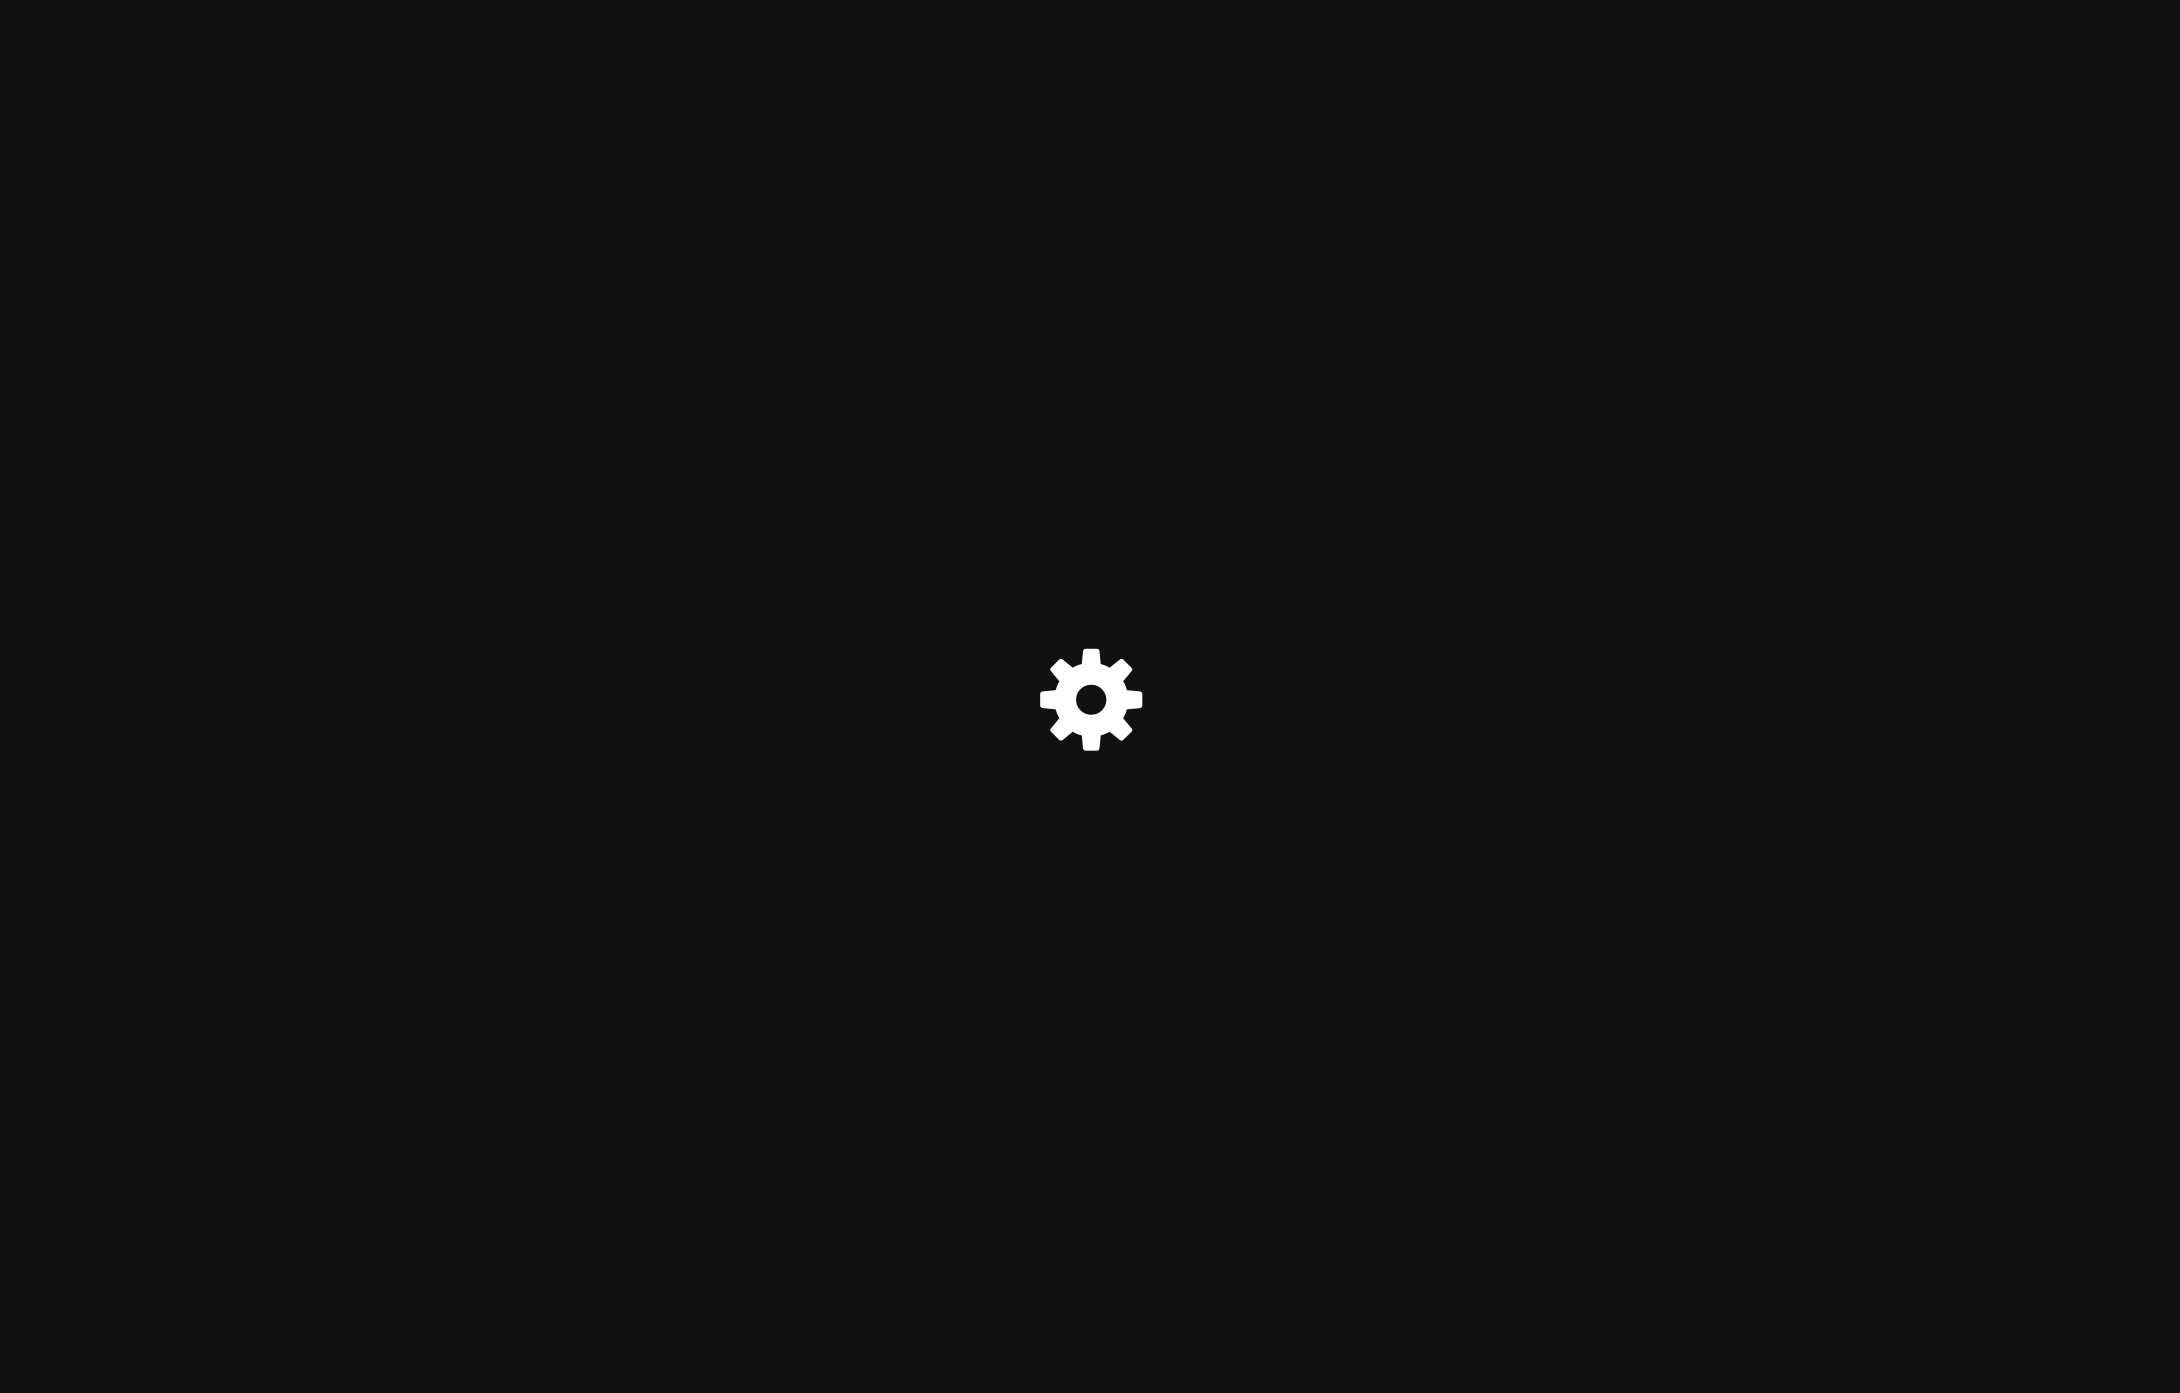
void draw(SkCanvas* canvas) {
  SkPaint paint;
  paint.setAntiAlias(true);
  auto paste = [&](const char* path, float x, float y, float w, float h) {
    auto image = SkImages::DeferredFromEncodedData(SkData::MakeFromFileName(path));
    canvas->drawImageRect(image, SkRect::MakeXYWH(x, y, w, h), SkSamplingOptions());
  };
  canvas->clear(0xff111111);
  paste("img/1.png", 1040, 648, 103, 103);
}
